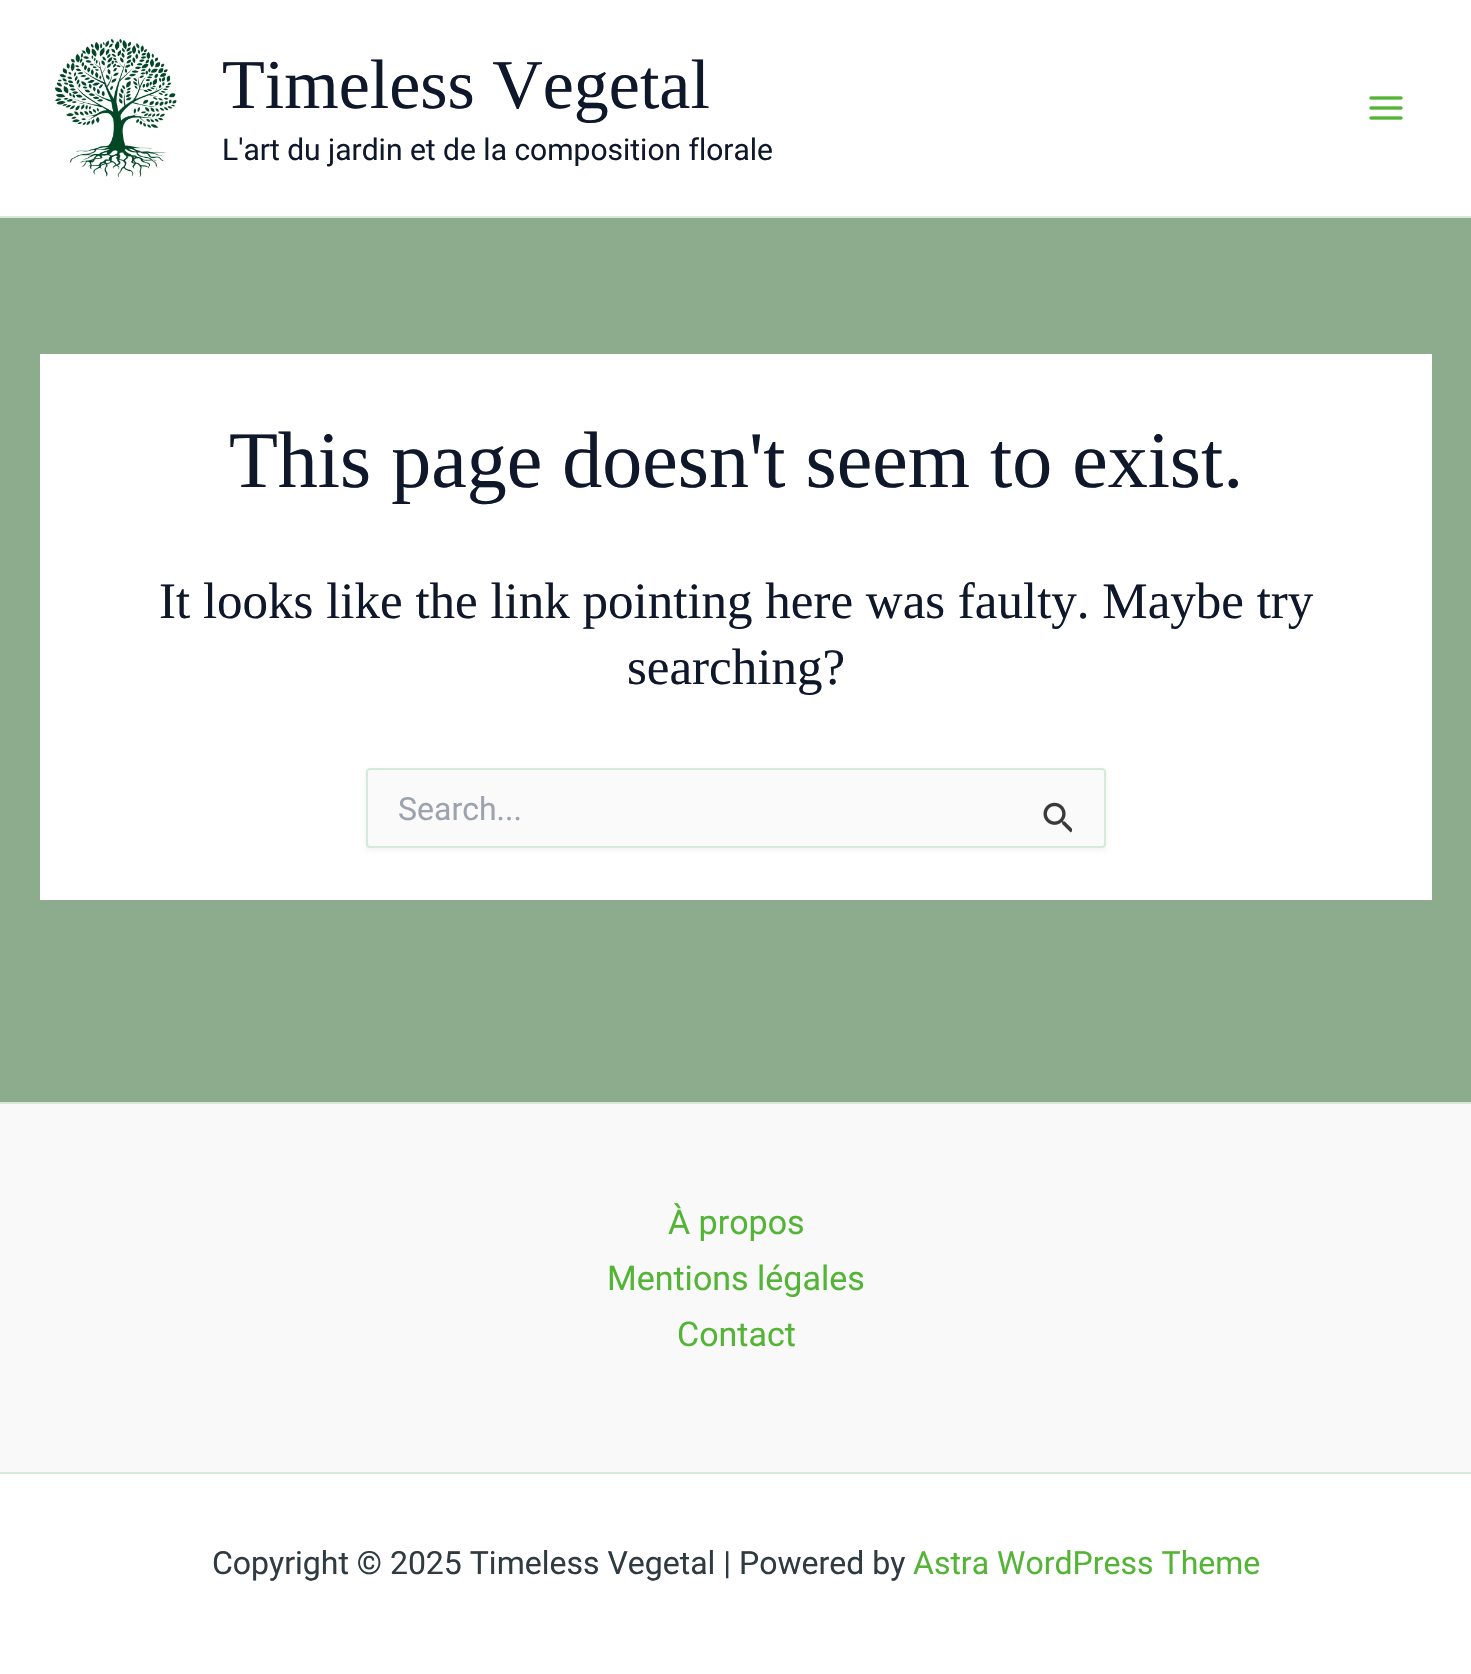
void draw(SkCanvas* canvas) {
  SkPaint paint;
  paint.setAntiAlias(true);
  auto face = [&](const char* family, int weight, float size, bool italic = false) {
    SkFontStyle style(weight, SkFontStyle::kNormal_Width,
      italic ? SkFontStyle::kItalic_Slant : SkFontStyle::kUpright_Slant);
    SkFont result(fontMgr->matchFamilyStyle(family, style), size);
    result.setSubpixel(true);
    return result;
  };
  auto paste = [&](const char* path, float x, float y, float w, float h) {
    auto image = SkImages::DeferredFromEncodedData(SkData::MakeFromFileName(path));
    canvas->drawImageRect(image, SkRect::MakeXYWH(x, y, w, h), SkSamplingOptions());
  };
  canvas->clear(0xff8dab8d);
  paint.setColor(0xffffffff);
  canvas->drawRect(SkRect::MakeXYWH(0, 0, 1471, 216), paint);
  paint.setColor(0xffd5ead8);
  canvas->drawRect(SkRect::MakeXYWH(0, 216, 1471, 2), paint);
  paste("img/1.png", 54, 38, 123, 139);
  paste("img/2.png", 1369, 96, 34, 24);
  paint.setColor(0xffffffff);
  canvas->drawRect(SkRect::MakeXYWH(40, 354, 1392, 546), paint);
  paint.setColor(0x0d000000);
  paint.setMaskFilter(SkMaskFilter::MakeBlur(kNormal_SkBlurStyle, 2));
  canvas->drawRoundRect(SkRect::MakeXYWH(366, 770, 740, 80), 4, 4, paint);
  paint.setMaskFilter(nullptr);
  paint.setColor(0xfffafafa);
  canvas->drawRoundRect(SkRect::MakeXYWH(367, 769, 738, 78), 3, 3, paint);
  paint.setStroke(true);
  paint.setStrokeWidth(2);
  paint.setColor(0xffd5ead8);
  canvas->drawRoundRect(SkRect::MakeXYWH(367, 769, 738, 78), 3, 3, paint);
  paste("img/3.png", 1043, 802, 29, 31);
  paint.setStroke(false);
  {
    const struct { float x, y, w, h; SkColor color; } items[] = {
      {0, 1104, 1471, 368, 0xfff9f9f9},
      {0, 1102, 1471, 2, 0xffd5ead8},
      {0, 1474, 1471, 200, 0xffffffff},
      {0, 1472, 1471, 2, 0xffd5ead8},
    };
    for (auto [x, y, w, h, color] : items) {
      paint.setColor(color);
      canvas->drawRect(SkRect::MakeXYWH(x, y, w, h), paint);
    }
  }
  auto f0 = face("Liberation Serif", 400, 70);
  paint.setColor(0xff0f172a);
  canvas->drawString("Timeless Vegetal", 222, 108, f0, paint);
  auto f1 = face("Roboto", 400, 30);
  canvas->drawString("L'art du jardin et de la composition florale", 222, 160, f1, paint);
  auto f2 = face("Liberation Serif", 400, 80);
  canvas->drawString("This page doesn't seem to exist.", 229, 487, f2, paint);
  auto f3 = face("Liberation Serif", 400, 51);
  canvas->drawString("It looks like the link pointing here was faulty. Maybe try", 159, 618, f3, paint);
  canvas->drawString("searching?", 627, 684, f3, paint);
  auto f4 = face("Roboto", 400, 32);
  paint.setColor(0xff9ca3af);
  canvas->drawString("Search...", 398, 820, f4, paint);
  auto f5 = face("Roboto", 400, 34);
  paint.setColor(0xff54b435);
  {
    const struct { const char* s; float x, y; } items[] = {
      {"À propos", 668, 1234},
      {"Mentions légales", 607, 1290},
      {"Contact", 677, 1346},
    };
    for (auto [s, x, y] : items) {
      canvas->drawString(s, x, y, f5, paint);
    }
  }
  paint.setColor(0xff2f3b40);
  canvas->drawString("Copyright © 2025 Timeless Vegetal | Powered by", 212, 1574, f4, paint);
  paint.setColor(0xff54b435);
  canvas->drawString("Astra WordPress Theme", 913, 1574, f4, paint);
}
